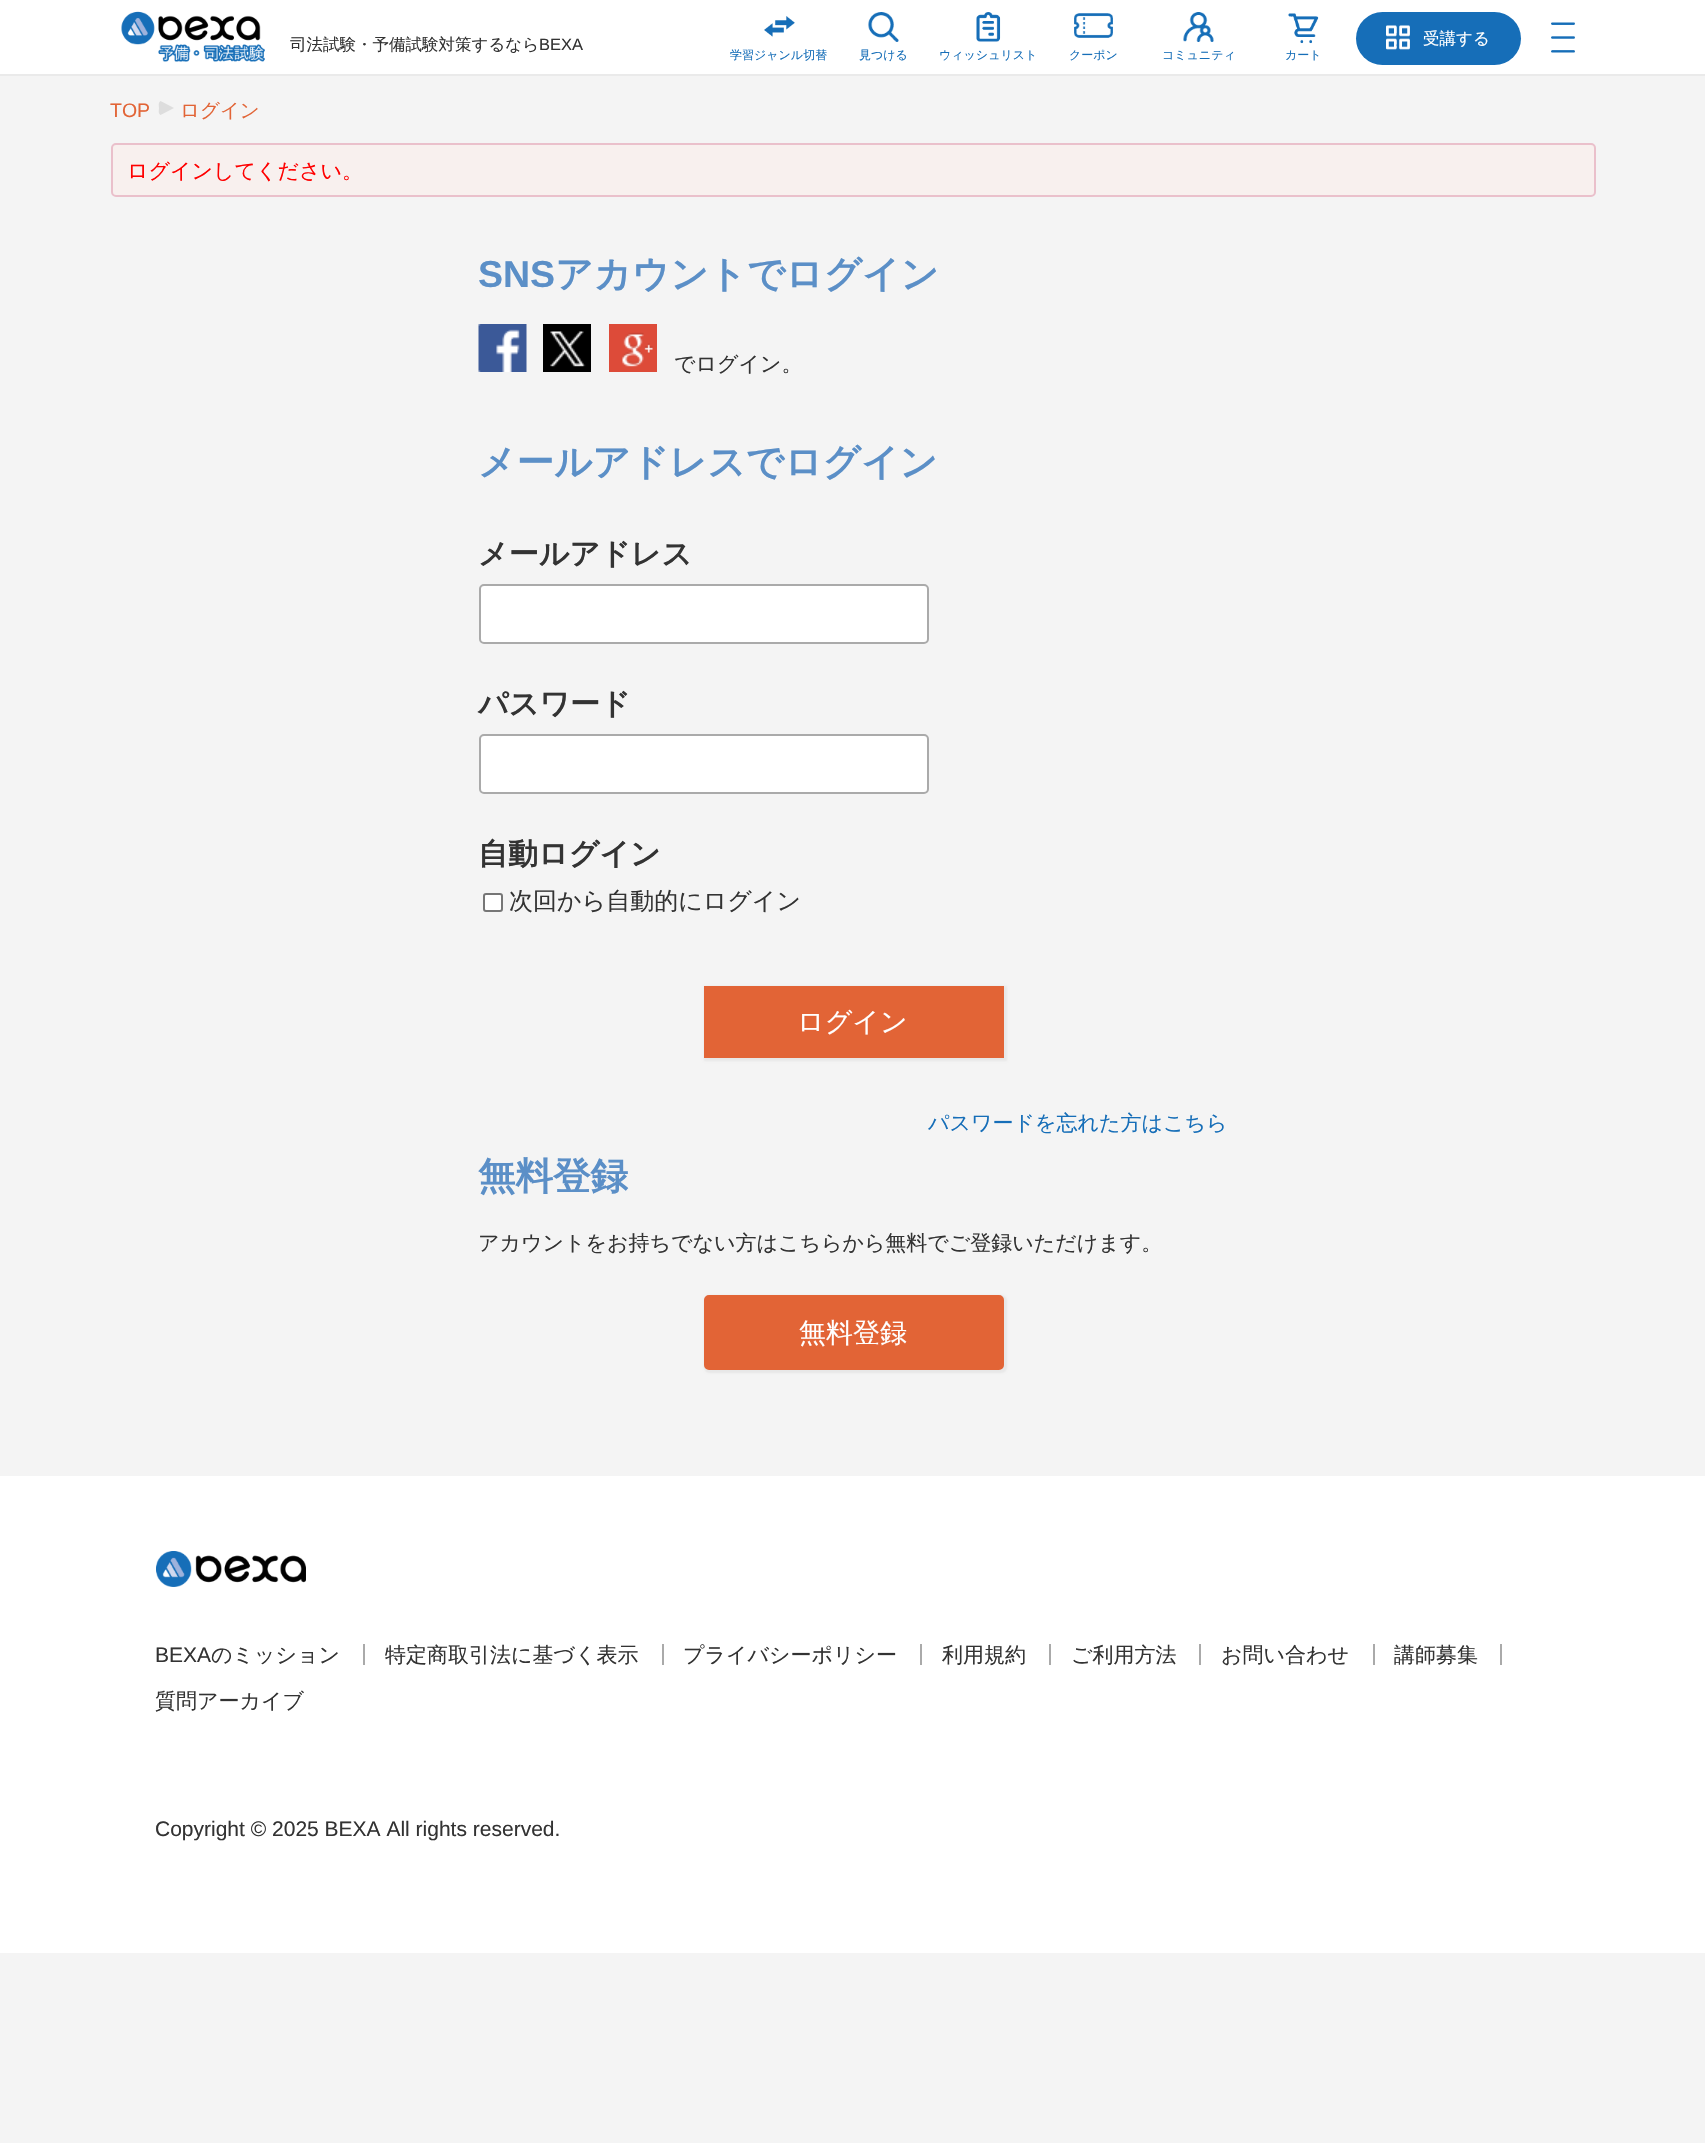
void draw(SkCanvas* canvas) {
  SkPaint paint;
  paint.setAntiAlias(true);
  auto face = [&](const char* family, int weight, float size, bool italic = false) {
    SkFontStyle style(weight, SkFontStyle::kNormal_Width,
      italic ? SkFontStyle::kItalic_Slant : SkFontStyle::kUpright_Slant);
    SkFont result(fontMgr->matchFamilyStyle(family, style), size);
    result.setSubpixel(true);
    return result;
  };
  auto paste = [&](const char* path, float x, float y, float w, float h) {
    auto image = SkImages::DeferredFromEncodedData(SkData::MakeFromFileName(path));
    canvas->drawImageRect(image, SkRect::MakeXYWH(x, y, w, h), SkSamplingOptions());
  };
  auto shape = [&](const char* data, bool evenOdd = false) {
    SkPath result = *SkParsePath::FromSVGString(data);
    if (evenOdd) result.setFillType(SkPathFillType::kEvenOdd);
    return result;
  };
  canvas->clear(0xfff4f4f4);
  paint.setColor(0xffffffff);
  canvas->drawRect(SkRect::MakeXYWH(0, 0, 1705, 74), paint);
  paint.setColor(0xffeaeaea);
  canvas->drawRect(SkRect::MakeXYWH(0, 74, 1705, 2), paint);
  paste("img/1.png", 121, 11, 144, 51);
  paint.setColor(0xff166eb8);
  canvas->drawRoundRect(SkRect::MakeXYWH(1356, 12, 165, 53), 26.5f, 26.5f, paint);
  paste("img/2.png", 1386, 25, 24, 25);
  paste("img/3.png", 1551, 22, 24, 31);
  paste("img/4.png", 764, 16, 31, 21);
  paste("img/5.png", 868, 12, 31, 30);
  paste("img/6.png", 976, 12, 25, 30);
  paste("img/7.png", 1074, 13, 39, 25);
  paste("img/8.png", 1183, 12, 31, 30);
  paste("img/9.png", 1288, 13, 31, 31);
  paint.setColor(0xffdddddd);
  canvas->drawPath(shape("M174 108L160.5 101C158 102.5 159 106 159 108C159 110 158 113.5 160.5 115Z"), paint);
  paint.setColor(0xfff8f0ee);
  canvas->drawRoundRect(SkRect::MakeXYWH(112, 144, 1483, 52), 4, 4, paint);
  paint.setStroke(true);
  paint.setStrokeWidth(2);
  paint.setColor(0xffeac0cb);
  canvas->drawRoundRect(SkRect::MakeXYWH(112, 144, 1483, 52), 4, 4, paint);
  paste("img/10.png", 478, 324, 49, 48);
  paste("img/11.png", 543, 324, 48, 48);
  paste("img/12.png", 609, 324, 48, 48);
  paint.setStroke(false);
  paint.setColor(0xffffffff);
  canvas->drawRoundRect(SkRect::MakeXYWH(480, 585, 448, 58), 4, 4, paint);
  paint.setStroke(true);
  paint.setColor(0xffaaaaaa);
  canvas->drawRoundRect(SkRect::MakeXYWH(480, 585, 448, 58), 4, 4, paint);
  paint.setStroke(false);
  paint.setColor(0xffffffff);
  canvas->drawRoundRect(SkRect::MakeXYWH(480, 735, 448, 58), 4, 4, paint);
  paint.setStroke(true);
  paint.setColor(0xffaaaaaa);
  canvas->drawRoundRect(SkRect::MakeXYWH(480, 735, 448, 58), 4, 4, paint);
  paint.setStroke(false);
  paint.setColor(0xffffffff);
  canvas->drawRoundRect(SkRect::MakeXYWH(484, 894, 18, 17), 2, 2, paint);
  paint.setStroke(true);
  paint.setColor(0xff767676);
  canvas->drawRoundRect(SkRect::MakeXYWH(484, 894, 18, 17), 2, 2, paint);
  paint.setStroke(false);
  paint.setColor(0x0d000000);
  paint.setMaskFilter(SkMaskFilter::MakeBlur(kNormal_SkBlurStyle, 1));
  canvas->drawRect(SkRect::MakeXYWH(704, 986, 303, 75), paint);
  paint.setMaskFilter(nullptr);
  paint.setColor(0xffe26436);
  canvas->drawRect(SkRect::MakeXYWH(704, 986, 300, 72), paint);
  paint.setColor(0x0d000000);
  paint.setMaskFilter(SkMaskFilter::MakeBlur(kNormal_SkBlurStyle, 1));
  canvas->drawRoundRect(SkRect::MakeXYWH(704, 1295, 303, 78), 6, 6, paint);
  paint.setMaskFilter(nullptr);
  paint.setColor(0xffe26436);
  canvas->drawRoundRect(SkRect::MakeXYWH(705, 1296, 298, 73), 4, 4, paint);
  paint.setStroke(true);
  canvas->drawRoundRect(SkRect::MakeXYWH(705, 1296, 298, 73), 4, 4, paint);
  paint.setStroke(false);
  paint.setColor(0xffffffff);
  canvas->drawRect(SkRect::MakeXYWH(0, 1476, 1705, 477), paint);
  paste("img/13.png", 156, 1551, 150, 36);
  {
    const struct { float x, y, w, h; SkColor color; } items[] = {
      {363, 1644, 2, 21, 0xffaaaaaa},
      {662, 1644, 2, 21, 0xffaaaaaa},
      {920, 1644, 2, 21, 0xffaaaaaa},
      {1049, 1644, 2, 21, 0xffaaaaaa},
      {1199, 1644, 2, 21, 0xffaaaaaa},
      {1373, 1644, 2, 21, 0xffaaaaaa},
      {1500, 1644, 2, 21, 0xffaaaaaa},
    };
    for (auto [x, y, w, h, color] : items) {
      paint.setColor(color);
      canvas->drawRect(SkRect::MakeXYWH(x, y, w, h), paint);
    }
  }
  auto f0 = face("WenQuanYi Zen Hei", 500, 16.5f);
  paint.setColor(0xff333333);
  canvas->drawString("司法試験・予備試験対策するなら", 290, 50, f0, paint);
  auto f1 = face("Liberation Sans", 400, 16.5f);
  canvas->drawString("BEXA", 539, 50, f1, paint);
  paint.setColor(0xffffffff);
  canvas->drawString("受講する", 1423, 44, f0, paint);
  auto f2 = face("WenQuanYi Zen Hei", 500, 12);
  paint.setColor(0xff166eb8);
  {
    const struct { const char* s; float x, y; } items[] = {
      {"学習ジャンル切替", 730, 59},
      {"見つける", 859, 59},
      {"ウィッシュリスト", 939, 59},
      {"クーポン", 1069, 59},
      {"コミュニティ", 1162, 59},
      {"カート", 1285, 59},
    };
    for (auto [s, x, y] : items) {
      canvas->drawString(s, x, y, f2, paint);
    }
  }
  auto f3 = face("Liberation Sans", 400, 19.5f);
  paint.setColor(0xffe26436);
  canvas->drawString("TOP", 110, 117, f3, paint);
  auto f4 = face("WenQuanYi Zen Hei", 500, 19.5f);
  canvas->drawString("ログイン", 180, 117, f4, paint);
  auto f5 = face("WenQuanYi Zen Hei", 500, 21);
  paint.setColor(0xffff0000);
  canvas->drawString("ログインしてください。", 127, 178, f5, paint);
  auto f6 = face("Liberation Sans", 700, 37.5f);
  paint.setColor(0xff5b8fc7);
  canvas->drawString("SNS", 478, 287, f6, paint);
  auto f7 = face("WenQuanYi Zen Hei", 700, 37.5f);
  canvas->drawString("アカウントでログイン", 555, 287, f7, paint);
  paint.setColor(0xff333333);
  canvas->drawString("でログイン。", 674, 371, f5, paint);
  paint.setColor(0xff5b8fc7);
  canvas->drawString("メールアドレスでログイン", 478, 475, f7, paint);
  auto f8 = face("WenQuanYi Zen Hei", 700, 30);
  paint.setColor(0xff333333);
  {
    const struct { const char* s; float x, y; } items[] = {
      {"メールアドレス", 478, 564},
      {"パスワード", 478, 714},
      {"自動ログイン", 478, 864},
    };
    for (auto [s, x, y] : items) {
      canvas->drawString(s, x, y, f8, paint);
    }
  }
  auto f9 = face("WenQuanYi Zen Hei", 500, 24);
  canvas->drawString("次回から自動的にログイン", 509, 909, f9, paint);
  auto f10 = face("WenQuanYi Zen Hei", 500, 27);
  paint.setColor(0xffffffff);
  canvas->drawString("ログイン", 797, 1031, f10, paint);
  paint.setColor(0xff166eb8);
  canvas->drawString("パスワードを忘れた方はこちら", 928, 1130, f5, paint);
  paint.setColor(0xff5b8fc7);
  canvas->drawString("無料登録", 478, 1189, f7, paint);
  paint.setColor(0xff333333);
  canvas->drawString("アカウントをお持ちでない方はこちらから無料でご登録いただけます。", 478, 1250, f5, paint);
  paint.setColor(0xffffffff);
  canvas->drawString("無料登録", 799, 1342, f10, paint);
  auto f11 = face("Liberation Sans", 400, 21);
  paint.setColor(0xff333333);
  canvas->drawString("BEXA", 155, 1662, f11, paint);
  {
    const struct { const char* s; float x, y; } items[] = {
      {"のミッション", 211, 1662},
      {"特定商取引法に基づく表示", 385, 1662},
      {"プライバシーポリシー", 683, 1662},
      {"利用規約", 942, 1662},
      {"ご利用方法", 1071, 1662},
      {"お問い合わせ", 1221, 1662},
      {"講師募集", 1394, 1662},
      {"質問アーカイブ", 155, 1708},
    };
    for (auto [s, x, y] : items) {
      canvas->drawString(s, x, y, f5, paint);
    }
  }
  canvas->drawString("Copyright © 2025 BEXA All rights reserved.", 155, 1836, f11, paint);
}
